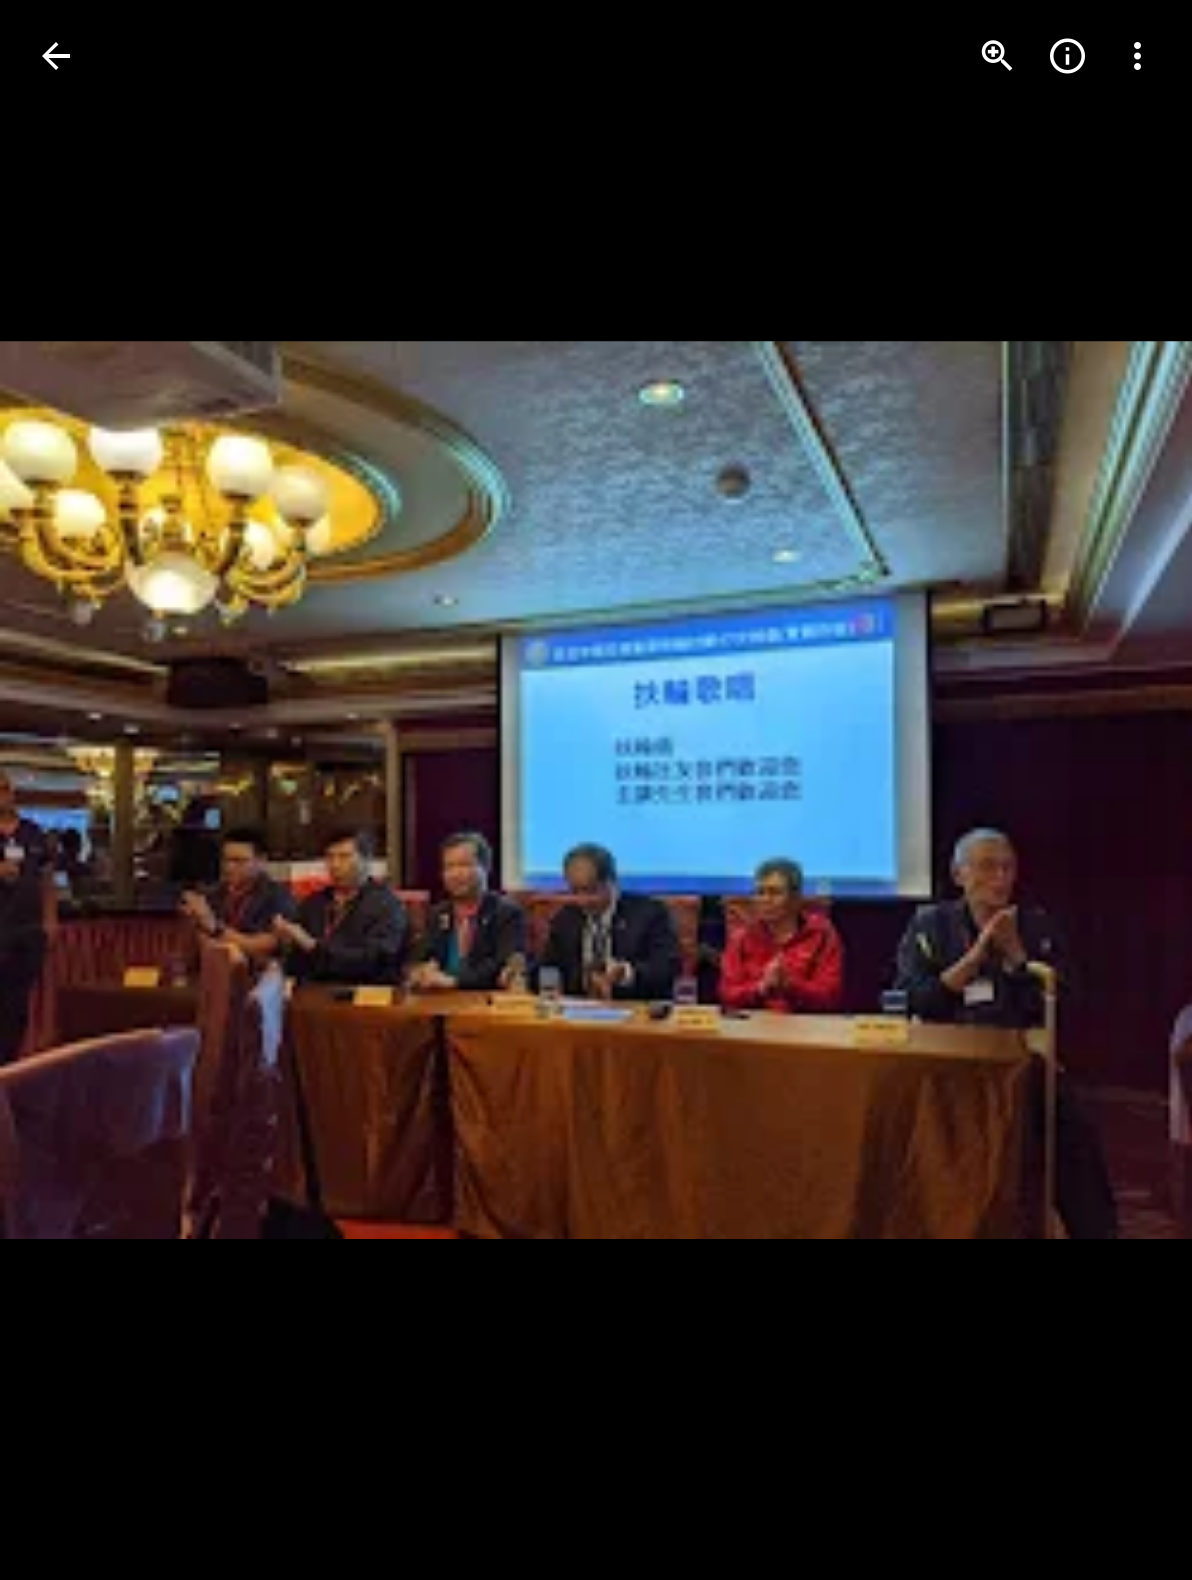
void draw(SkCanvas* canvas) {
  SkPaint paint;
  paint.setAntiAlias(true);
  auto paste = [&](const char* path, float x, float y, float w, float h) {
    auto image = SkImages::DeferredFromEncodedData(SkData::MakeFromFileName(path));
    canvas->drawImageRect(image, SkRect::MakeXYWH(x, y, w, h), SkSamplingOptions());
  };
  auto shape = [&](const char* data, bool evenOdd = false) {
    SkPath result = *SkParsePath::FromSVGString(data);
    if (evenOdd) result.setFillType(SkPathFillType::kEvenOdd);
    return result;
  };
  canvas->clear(0xff000000);
  paint.setColor(0xffffffff);
  canvas->drawPath(shape("M70 54H48.5L58.5 44.5L56 42L42 56L56 70L58.5 67.5L48.5 58H70Z"), paint);
  paste("img/1.png", 981, 40, 32, 31);
  paste("img/2.png", 1050, 38, 35, 36);
  paste("img/3.png", 1134, 42, 7, 28);
  paste("img/4.png", 0, 341, 1192, 898);
}
